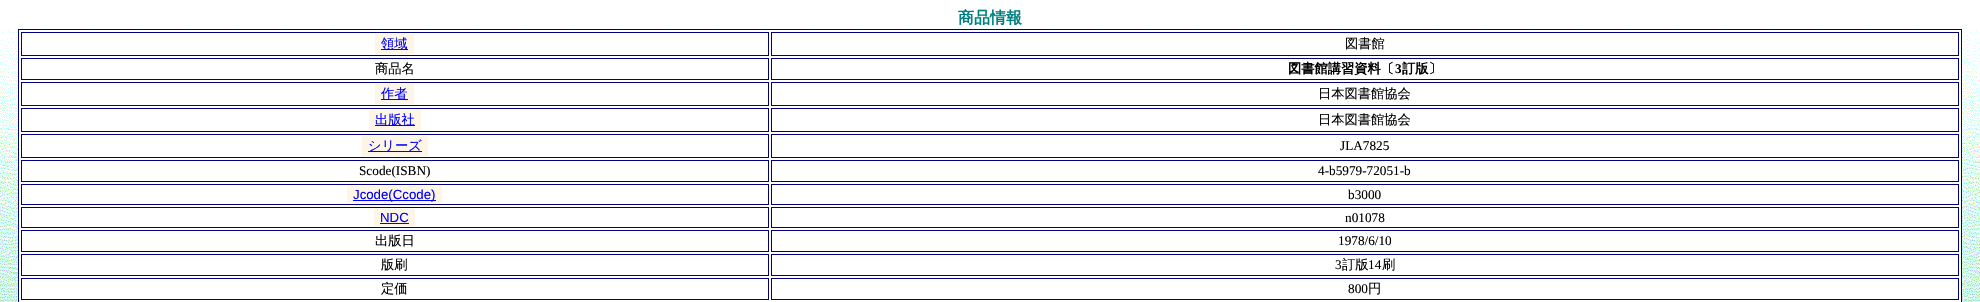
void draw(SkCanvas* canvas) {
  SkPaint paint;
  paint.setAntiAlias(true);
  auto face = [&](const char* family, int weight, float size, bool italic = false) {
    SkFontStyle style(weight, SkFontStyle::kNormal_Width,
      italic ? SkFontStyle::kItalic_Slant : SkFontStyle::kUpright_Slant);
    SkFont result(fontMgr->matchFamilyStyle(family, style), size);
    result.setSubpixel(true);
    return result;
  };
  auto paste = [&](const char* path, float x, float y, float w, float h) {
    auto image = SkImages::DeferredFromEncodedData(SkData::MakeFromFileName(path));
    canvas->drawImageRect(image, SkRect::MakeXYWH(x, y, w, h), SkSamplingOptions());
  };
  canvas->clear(0xffffffff);
  paste("img/1.png", 0, 0, 1980, 302);
  paint.setColor(0xffffffff);
  canvas->drawRect(SkRect::MakeXYWH(19, 31, 1942, 271), paint);
  paint.setStroke(true);
  paint.setStrokeWidth(1);
  paint.setColor(0xff000080);
  canvas->drawRect(SkRect::MakeXYWH(18.5f, 29.5f, 1943, 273), paint);
  canvas->drawRect(SkRect::MakeXYWH(21.5f, 32.5f, 747, 23), paint);
  paint.setStroke(false);
  paint.setColor(0xfffdf5e6);
  canvas->drawRect(SkRect::MakeXYWH(375, 34, 39, 20), paint);
  paint.setColor(0xff0000ff);
  canvas->drawRect(SkRect::MakeXYWH(381, 49, 27, 1), paint);
  paint.setStroke(true);
  paint.setColor(0xff000080);
  canvas->drawRect(SkRect::MakeXYWH(771.5f, 32.5f, 1187, 23), paint);
  canvas->drawRect(SkRect::MakeXYWH(21.5f, 58.5f, 747, 21), paint);
  canvas->drawRect(SkRect::MakeXYWH(771.5f, 58.5f, 1187, 21), paint);
  canvas->drawRect(SkRect::MakeXYWH(21.5f, 82.5f, 747, 23), paint);
  paint.setStroke(false);
  paint.setColor(0xfffdf5e6);
  canvas->drawRect(SkRect::MakeXYWH(375, 84, 39, 20), paint);
  paint.setColor(0xff0000ff);
  canvas->drawRect(SkRect::MakeXYWH(381, 99, 27, 1), paint);
  paint.setStroke(true);
  paint.setColor(0xff000080);
  canvas->drawRect(SkRect::MakeXYWH(771.5f, 82.5f, 1187, 23), paint);
  canvas->drawRect(SkRect::MakeXYWH(21.5f, 108.5f, 747, 23), paint);
  paint.setStroke(false);
  paint.setColor(0xfffdf5e6);
  canvas->drawRect(SkRect::MakeXYWH(369, 110, 52, 20), paint);
  paint.setColor(0xff0000ff);
  canvas->drawRect(SkRect::MakeXYWH(375, 125, 40, 1), paint);
  paint.setStroke(true);
  paint.setColor(0xff000080);
  canvas->drawRect(SkRect::MakeXYWH(771.5f, 108.5f, 1187, 23), paint);
  canvas->drawRect(SkRect::MakeXYWH(21.5f, 134.5f, 747, 23), paint);
  paint.setStroke(false);
  paint.setColor(0xfffdf5e6);
  canvas->drawRect(SkRect::MakeXYWH(362, 136, 66, 20), paint);
  paint.setColor(0xff0000ff);
  canvas->drawRect(SkRect::MakeXYWH(368, 151, 54, 1), paint);
  paint.setStroke(true);
  paint.setColor(0xff000080);
  canvas->drawRect(SkRect::MakeXYWH(771.5f, 134.5f, 1187, 23), paint);
  canvas->drawRect(SkRect::MakeXYWH(21.5f, 160.5f, 747, 21), paint);
  canvas->drawRect(SkRect::MakeXYWH(771.5f, 160.5f, 1187, 21), paint);
  canvas->drawRect(SkRect::MakeXYWH(21.5f, 184.5f, 747, 20), paint);
  paint.setStroke(false);
  paint.setColor(0xfffdf5e6);
  canvas->drawRect(SkRect::MakeXYWH(347, 186, 95, 17), paint);
  paint.setColor(0xff0000ff);
  canvas->drawRect(SkRect::MakeXYWH(353, 200, 83, 1), paint);
  paint.setStroke(true);
  paint.setColor(0xff000080);
  canvas->drawRect(SkRect::MakeXYWH(771.5f, 184.5f, 1187, 20), paint);
  canvas->drawRect(SkRect::MakeXYWH(21.5f, 207.5f, 747, 20), paint);
  paint.setStroke(false);
  paint.setColor(0xfffdf5e6);
  canvas->drawRect(SkRect::MakeXYWH(374, 209, 41, 17), paint);
  paint.setColor(0xff0000ff);
  canvas->drawRect(SkRect::MakeXYWH(380, 223, 29, 1), paint);
  paint.setStroke(true);
  paint.setColor(0xff000080);
  canvas->drawRect(SkRect::MakeXYWH(771.5f, 207.5f, 1187, 20), paint);
  canvas->drawRect(SkRect::MakeXYWH(21.5f, 230.5f, 747, 21), paint);
  canvas->drawRect(SkRect::MakeXYWH(771.5f, 230.5f, 1187, 21), paint);
  canvas->drawRect(SkRect::MakeXYWH(21.5f, 254.5f, 747, 21), paint);
  canvas->drawRect(SkRect::MakeXYWH(771.5f, 254.5f, 1187, 21), paint);
  canvas->drawRect(SkRect::MakeXYWH(21.5f, 278.5f, 747, 21), paint);
  canvas->drawRect(SkRect::MakeXYWH(771.5f, 278.5f, 1187, 21), paint);
  auto f0 = face("WenQuanYi Zen Hei", 700, 16);
  paint.setStroke(false);
  paint.setColor(0xff008080);
  canvas->drawString("商品情報", 958, 23, f0, paint);
  auto f1 = face("WenQuanYi Zen Hei", 500, 13.25f);
  paint.setColor(0xff0000ff);
  canvas->drawString("領域", 381, 48, f1, paint);
  paint.setColor(0xff000000);
  canvas->drawString("図書館", 1345, 48, f1, paint);
  canvas->drawString("商品名", 375, 73, f1, paint);
  auto f2 = face("WenQuanYi Zen Hei", 700, 13.25f);
  canvas->drawString("図書館講習資料〔", 1288, 73, f2, paint);
  auto f3 = face("Liberation Serif", 700, 13.25f);
  canvas->drawString("3", 1395, 73, f3, paint);
  canvas->drawString("訂版〕", 1402, 73, f2, paint);
  paint.setColor(0xff0000ff);
  canvas->drawString("作者", 381, 98, f1, paint);
  paint.setColor(0xff000000);
  canvas->drawString("日本図書館協会", 1318, 98, f1, paint);
  paint.setColor(0xff0000ff);
  canvas->drawString("出版社", 375, 124, f1, paint);
  paint.setColor(0xff000000);
  canvas->drawString("日本図書館協会", 1318, 124, f1, paint);
  paint.setColor(0xff0000ff);
  canvas->drawString("シリーズ", 368, 150, f1, paint);
  auto f4 = face("Liberation Serif", 400, 13.25f);
  paint.setColor(0xff000000);
  {
    const struct { const char* s; float x, y; } items[] = {
      {"JLA7825", 1340, 150},
      {"Scode(ISBN)", 359, 175},
      {"4-b5979-72051-b", 1318, 175},
    };
    for (auto [s, x, y] : items) {
      canvas->drawString(s, x, y, f4, paint);
    }
  }
  auto f5 = face("Liberation Sans", 400, 13.25f);
  paint.setColor(0xff0000ff);
  canvas->drawString("Jcode(Ccode)", 353, 199, f5, paint);
  paint.setColor(0xff000000);
  canvas->drawString("b3000", 1348, 199, f4, paint);
  paint.setColor(0xff0000ff);
  canvas->drawString("NDC", 380, 222, f5, paint);
  paint.setColor(0xff000000);
  canvas->drawString("n01078", 1345, 222, f4, paint);
  canvas->drawString("出版日", 375, 245, f1, paint);
  canvas->drawString("1978/6/10", 1338, 245, f4, paint);
  canvas->drawString("版刷", 381, 269, f1, paint);
  canvas->drawString("3", 1335, 269, f4, paint);
  canvas->drawString("訂版", 1342, 269, f1, paint);
  canvas->drawString("14", 1368, 269, f4, paint);
  canvas->drawString("刷", 1382, 269, f1, paint);
  canvas->drawString("定価", 381, 293, f1, paint);
  canvas->drawString("800", 1348, 293, f4, paint);
  canvas->drawString("円", 1368, 293, f1, paint);
}
